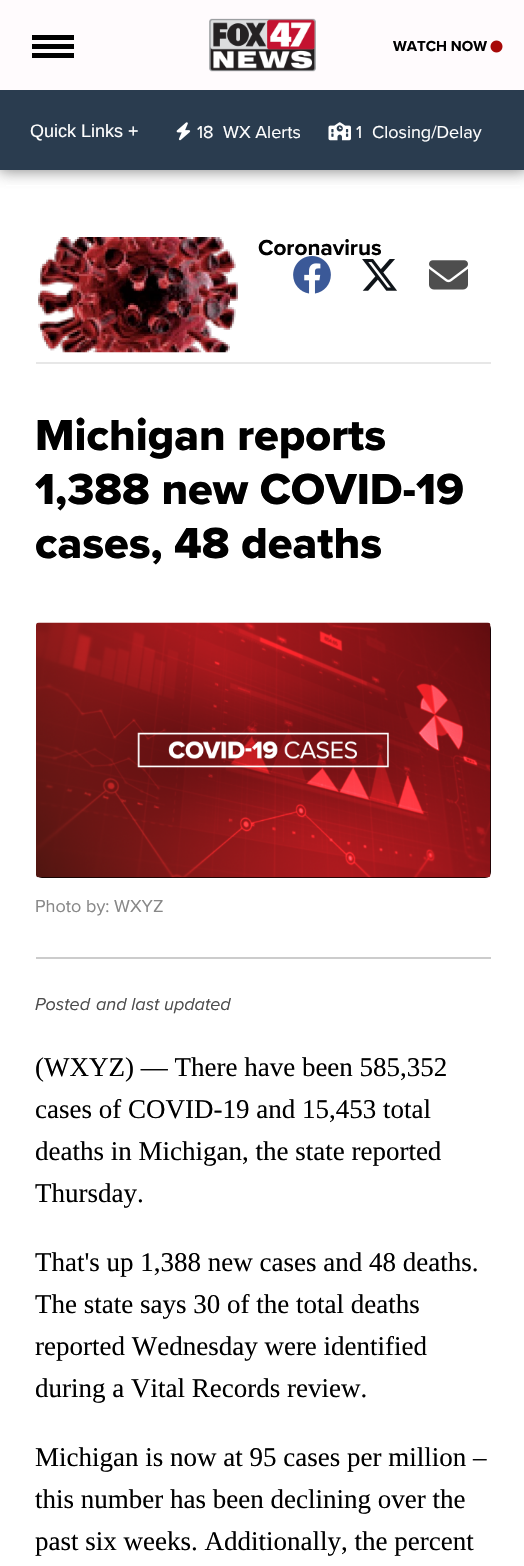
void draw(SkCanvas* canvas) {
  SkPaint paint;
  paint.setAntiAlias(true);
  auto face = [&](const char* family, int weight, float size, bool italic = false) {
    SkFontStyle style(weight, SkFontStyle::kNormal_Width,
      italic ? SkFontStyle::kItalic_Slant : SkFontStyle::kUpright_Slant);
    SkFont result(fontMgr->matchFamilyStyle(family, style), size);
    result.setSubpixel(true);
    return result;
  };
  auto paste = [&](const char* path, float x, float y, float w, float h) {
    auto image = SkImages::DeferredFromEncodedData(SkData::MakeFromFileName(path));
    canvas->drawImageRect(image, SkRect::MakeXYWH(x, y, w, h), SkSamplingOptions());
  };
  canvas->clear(0xffffffff);
  paint.setColor(0xc2616161);
  paint.setMaskFilter(SkMaskFilter::MakeBlur(kNormal_SkBlurStyle, 7.5f));
  canvas->drawRect(SkRect::MakeXYWH(-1, -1, 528, 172), paint);
  paint.setMaskFilter(nullptr);
  {
    const struct { float x, y, w, h; SkColor color; } items[] = {
      {0, 0, 524, 90, 0xfffffbfd},
      {32, 35, 42, 5, 0xff000000},
      {32, 44, 42, 5, 0xff000000},
      {32, 53, 42, 5, 0xff000000},
    };
    for (auto [x, y, w, h, color] : items) {
      paint.setColor(color);
      canvas->drawRect(SkRect::MakeXYWH(x, y, w, h), paint);
    }
  }
  paste("img/1.png", 209, 18, 107, 54);
  paste("img/2.png", 490, 40, 13, 13);
  paint.setColor(0xff2a3c4f);
  canvas->drawRect(SkRect::MakeXYWH(0, 90, 524, 80), paint);
  paste("img/3.png", 176, 122, 15, 19);
  paste("img/4.png", 328, 122, 23, 19);
  paint.setColor(0xffffffff);
  canvas->drawRect(SkRect::MakeXYWH(6, 185, 514, 1), paint);
  paint.setColor(0xffe7e7e7);
  canvas->drawRect(SkRect::MakeXYWH(36, 362, 455, 2), paint);
  paste("img/5.png", 38, 237, 200, 116);
  paste("img/6.png", 293, 256, 38, 38);
  paste("img/7.png", 362, 259, 35, 32);
  paste("img/8.png", 429, 260, 39, 30);
  paint.setColor(0xffcccccc);
  canvas->drawRect(SkRect::MakeXYWH(36, 957, 455, 2), paint);
  paint.setColor(0xff000000);
  canvas->drawRoundRect(SkRect::MakeXYWH(36, 623, 455, 255), 6, 6, paint);
  paste("img/9.png", 36, 622, 455, 256);
  auto f0 = face("Proxima Nova", 700, 15);
  canvas->drawString("WATCH NOW", 393, 51, f0, paint);
  auto f1 = face("Liberation Sans", 400, 18);
  paint.setColor(0xffffffff);
  canvas->drawString("Quick Links +", 30, 137, f1, paint);
  auto f2 = face("Proxima Nova", 400, 18);
  {
    const struct { const char* s; float x, y; } items[] = {
      {"18", 197, 138},
      {"WX Alerts", 223, 138},
      {"1", 356, 138},
      {"Closing/Delay", 372, 138},
    };
    for (auto [s, x, y] : items) {
      canvas->drawString(s, x, y, f2, paint);
    }
  }
  auto f3 = face("Proxima Nova", 700, 22.5f);
  paint.setColor(0xff000000);
  canvas->drawString("Coronavirus", 258, 255, f3, paint);
  auto f4 = face("Proxima Nova", 800, 45);
  {
    const struct { const char* s; float x, y; } items[] = {
      {"Michigan reports", 35, 450},
      {"1,388 new COVID-19", 35, 504},
      {"cases, 48 deaths", 35, 558},
    };
    for (auto [s, x, y] : items) {
      canvas->drawString(s, x, y, f4, paint);
    }
  }
  paint.setColor(0xff888888);
  canvas->drawString("Photo by: WXYZ", 35, 912, f2, paint);
  auto f5 = face("Proxima Nova", 400, 18, true);
  paint.setColor(0xff4d4d4d);
  canvas->drawString("Posted", 35, 1010, f5, paint);
  canvas->drawString("and last updated", 96, 1010, f5, paint);
  auto f6 = face("Liberation Serif", 400, 27);
  paint.setColor(0xff000000);
  {
    const struct { const char* s; float x, y; } items[] = {
      {"(WXYZ) — There have been 585,352", 35, 1076},
      {"cases of COVID-19 and 15,453 total", 35, 1118},
      {"deaths in Michigan, the state reported", 35, 1160},
      {"Thursday.", 35, 1202},
      {"That's up 1,388 new cases and 48 deaths.", 35, 1271},
      {"The state says 30 of the total deaths", 35, 1313},
      {"reported Wednesday were identified", 35, 1355},
      {"during a Vital Records review.", 35, 1397},
      {"Michigan is now at 95 cases per million –", 35, 1466},
      {"this number has been declining over the", 35, 1508},
      {"past six weeks. Additionally, the percent", 35, 1550},
    };
    for (auto [s, x, y] : items) {
      canvas->drawString(s, x, y, f6, paint);
    }
  }
}
